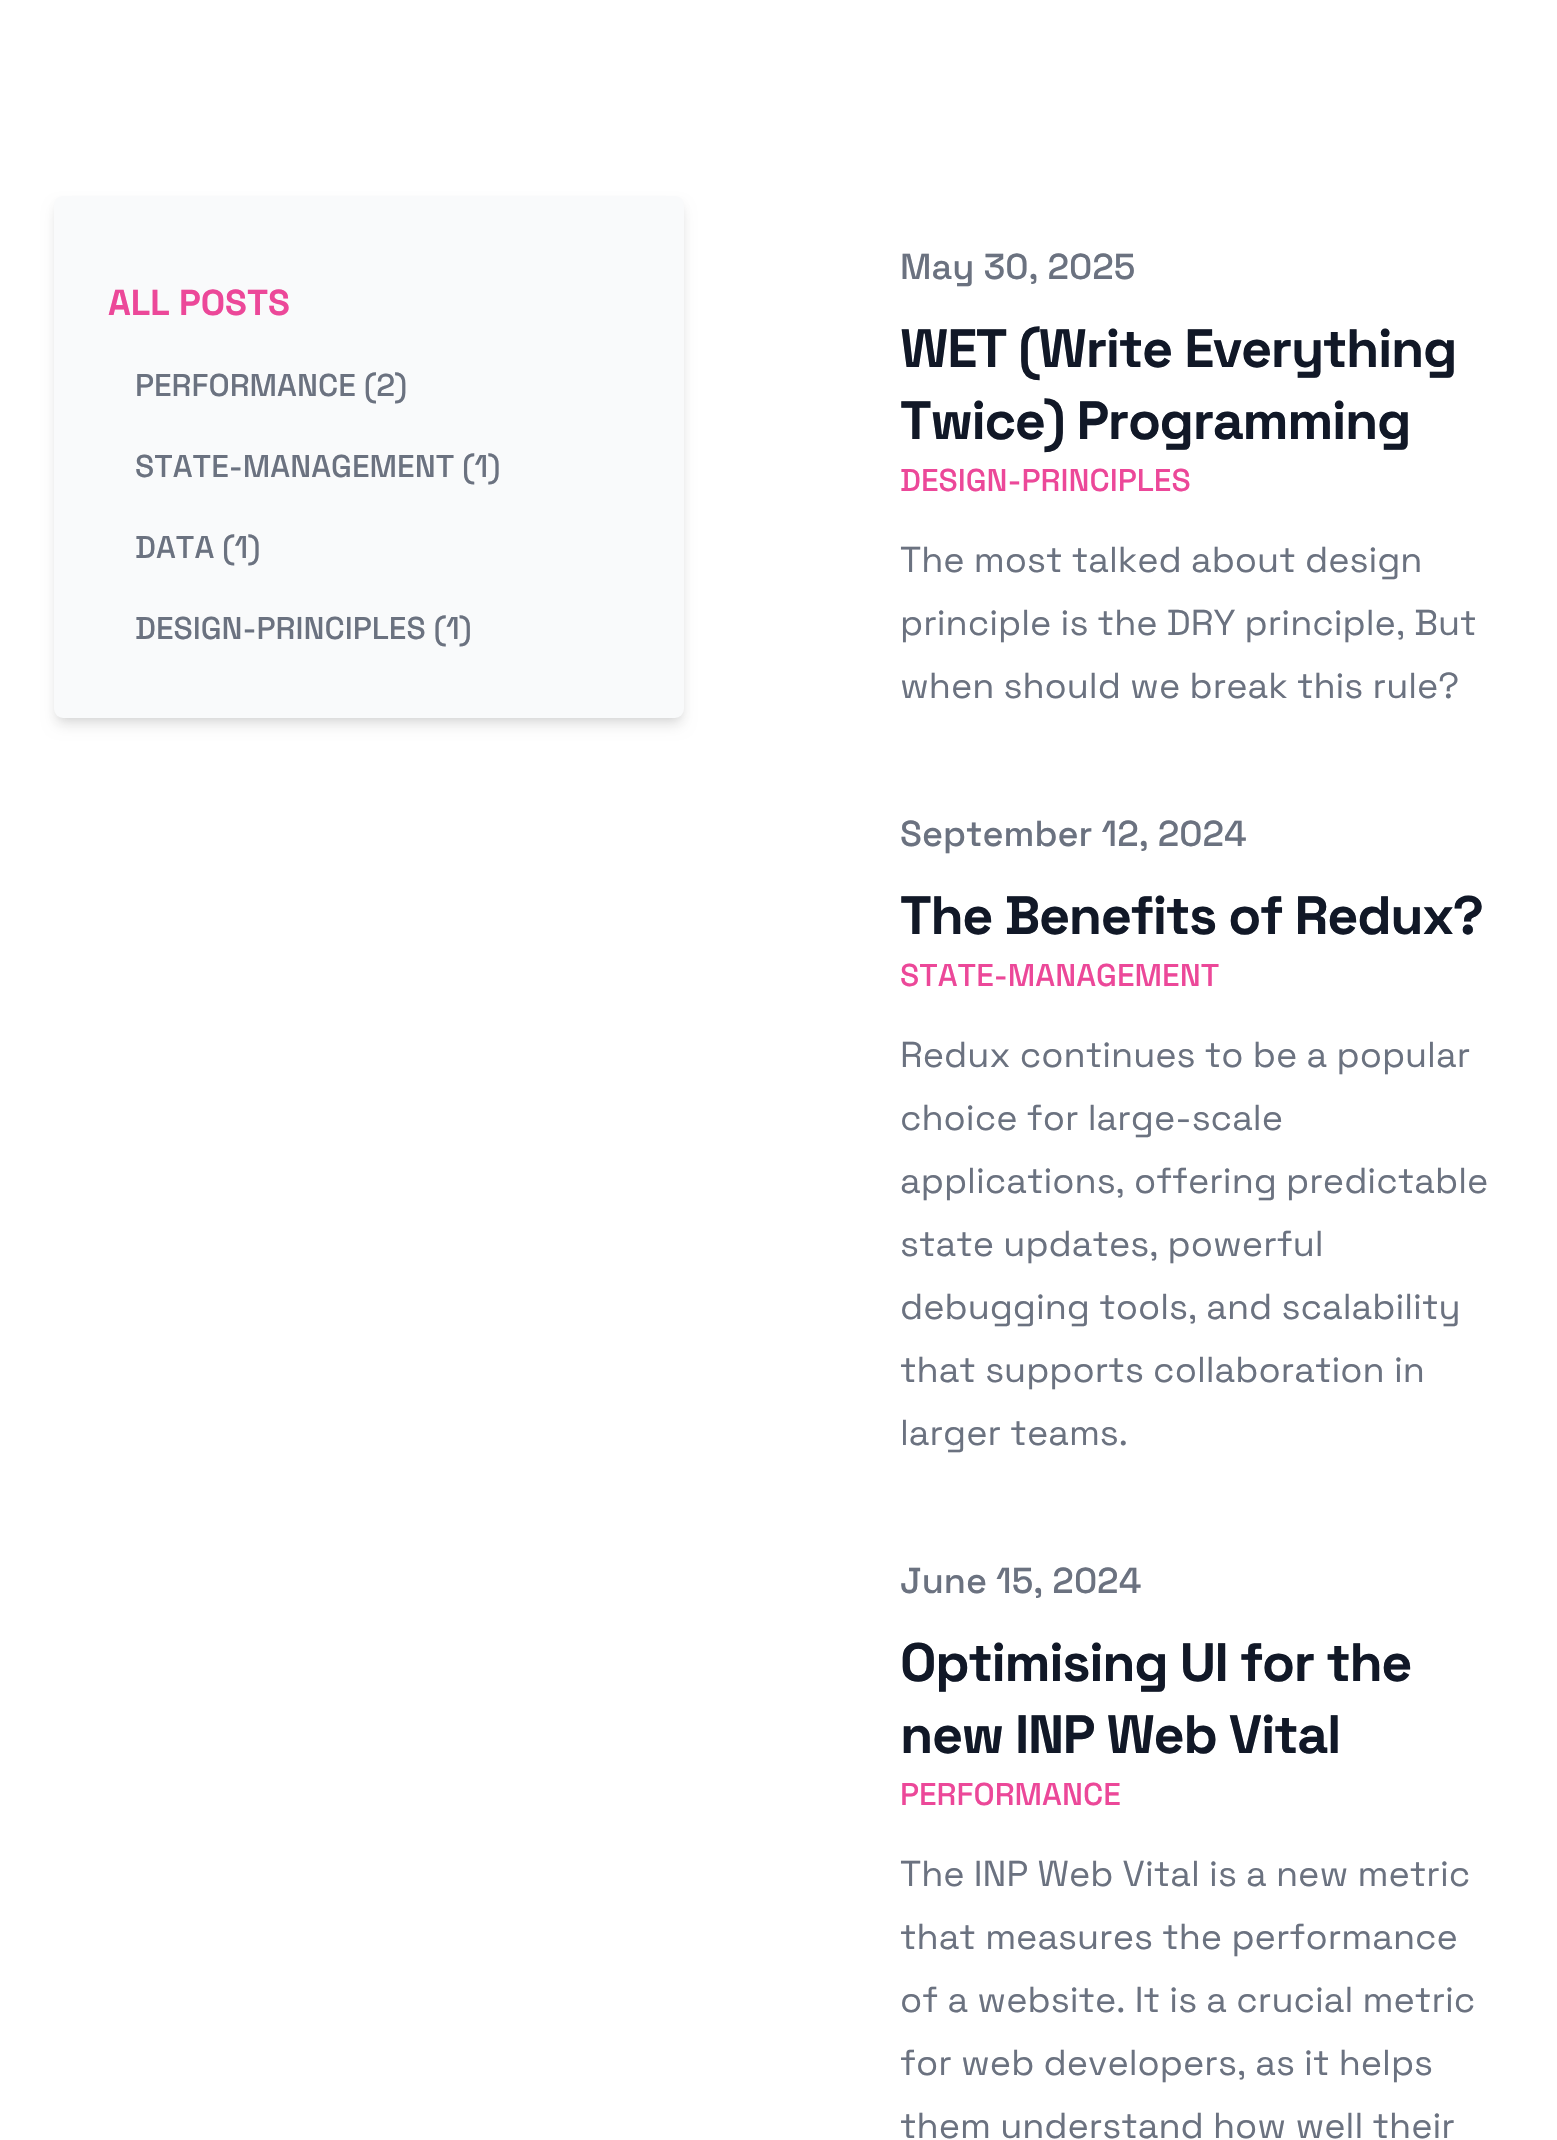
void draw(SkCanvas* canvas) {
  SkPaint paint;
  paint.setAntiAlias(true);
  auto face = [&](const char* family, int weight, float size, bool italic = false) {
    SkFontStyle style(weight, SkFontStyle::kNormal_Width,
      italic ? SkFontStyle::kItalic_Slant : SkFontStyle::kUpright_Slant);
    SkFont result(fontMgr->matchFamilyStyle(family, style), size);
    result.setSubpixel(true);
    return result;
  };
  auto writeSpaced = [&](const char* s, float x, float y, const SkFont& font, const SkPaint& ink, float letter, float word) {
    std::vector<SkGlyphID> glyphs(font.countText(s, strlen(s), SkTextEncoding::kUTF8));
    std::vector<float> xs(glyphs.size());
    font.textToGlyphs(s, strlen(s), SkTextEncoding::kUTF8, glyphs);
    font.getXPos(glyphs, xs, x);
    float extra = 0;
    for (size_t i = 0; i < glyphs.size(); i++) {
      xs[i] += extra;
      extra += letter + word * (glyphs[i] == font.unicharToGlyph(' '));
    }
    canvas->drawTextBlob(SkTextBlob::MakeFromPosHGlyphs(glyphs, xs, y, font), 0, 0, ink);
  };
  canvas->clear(0xffffffff);
  paint.setColor(0x1a000000);
  paint.setMaskFilter(SkMaskFilter::MakeBlur(kNormal_SkBlurStyle, 4.5f));
  canvas->drawRoundRect(SkRect::MakeXYWH(59, 205, 621, 513), 5, 5, paint);
  paint.setMaskFilter(nullptr);
  paint.setMaskFilter(SkMaskFilter::MakeBlur(kNormal_SkBlurStyle, 7));
  canvas->drawRoundRect(SkRect::MakeXYWH(56, 207, 626, 518), 7, 7, paint);
  paint.setMaskFilter(nullptr);
  paint.setColor(0xfff9fafb);
  canvas->drawRoundRect(SkRect::MakeXYWH(54, 196, 630, 522), 9, 9, paint);
  auto f0 = face("Space Grotesk", 700, 36);
  paint.setColor(0xffec4899);
  canvas->drawString("ALL POSTS", 108, 315, f0, paint);
  auto f1 = face("Space Grotesk", 500, 31.5f);
  paint.setColor(0xff6b7280);
  {
    const struct { const char* s; float x, y; } items[] = {
      {"PERFORMANCE (2)", 135, 396},
      {"STATE-MANAGEMENT (1)", 135, 477},
      {"DATA (1)", 135, 558},
      {"DESIGN-PRINCIPLES (1)", 135, 639},
    };
    for (auto [s, x, y] : items) {
      canvas->drawString(s, x, y, f1, paint);
    }
  }
  auto f2 = face("Space Grotesk", 500, 36);
  canvas->drawString("May 30, 2025", 900, 279, f2, paint);
  auto f3 = face("Space Grotesk", 700, 54);
  paint.setColor(0xff111827);
  writeSpaced("WET (Write Everything", 900, 367, f3, paint, -1.35f, 0);
  writeSpaced("Twice) Programming", 900, 439, f3, paint, -1.35f, 0);
  paint.setColor(0xffec4899);
  canvas->drawString("DESIGN-PRINCIPLES", 900, 491, f1, paint);
  auto f4 = face("Space Grotesk", 400, 36);
  paint.setColor(0xff6b7280);
  {
    const struct { const char* s; float x, y; } items[] = {
      {"The most talked about design", 900, 572},
      {"principle is the DRY principle, But", 900, 635},
      {"when should we break this rule?", 900, 698},
    };
    for (auto [s, x, y] : items) {
      canvas->drawString(s, x, y, f4, paint);
    }
  }
  canvas->drawString("September 12, 2024", 900, 846, f2, paint);
  paint.setColor(0xff111827);
  writeSpaced("The Benefits of Redux?", 900, 934, f3, paint, -1.35f, 0);
  paint.setColor(0xffec4899);
  canvas->drawString("STATE-MANAGEMENT", 900, 986, f1, paint);
  paint.setColor(0xff6b7280);
  {
    const struct { const char* s; float x, y; } items[] = {
      {"Redux continues to be a popular", 900, 1067},
      {"choice for large-scale", 900, 1130},
      {"applications, offering predictable", 900, 1193},
      {"state updates, powerful", 900, 1256},
      {"debugging tools, and scalability", 900, 1319},
      {"that supports collaboration in", 900, 1382},
      {"larger teams.", 900, 1445},
    };
    for (auto [s, x, y] : items) {
      canvas->drawString(s, x, y, f4, paint);
    }
  }
  canvas->drawString("June 15, 2024", 900, 1593, f2, paint);
  paint.setColor(0xff111827);
  writeSpaced("Optimising UI for the", 900, 1681, f3, paint, -1.35f, 0);
  writeSpaced("new INP Web Vital", 900, 1753, f3, paint, -1.35f, 0);
  paint.setColor(0xffec4899);
  canvas->drawString("PERFORMANCE", 900, 1805, f1, paint);
  paint.setColor(0xff6b7280);
  {
    const struct { const char* s; float x, y; } items[] = {
      {"The INP Web Vital is a new metric", 900, 1886},
      {"that measures the performance", 900, 1949},
      {"of a website. It is a crucial metric", 900, 2012},
      {"for web developers, as it helps", 900, 2075},
      {"them understand how well their", 900, 2138},
    };
    for (auto [s, x, y] : items) {
      canvas->drawString(s, x, y, f4, paint);
    }
  }
}
